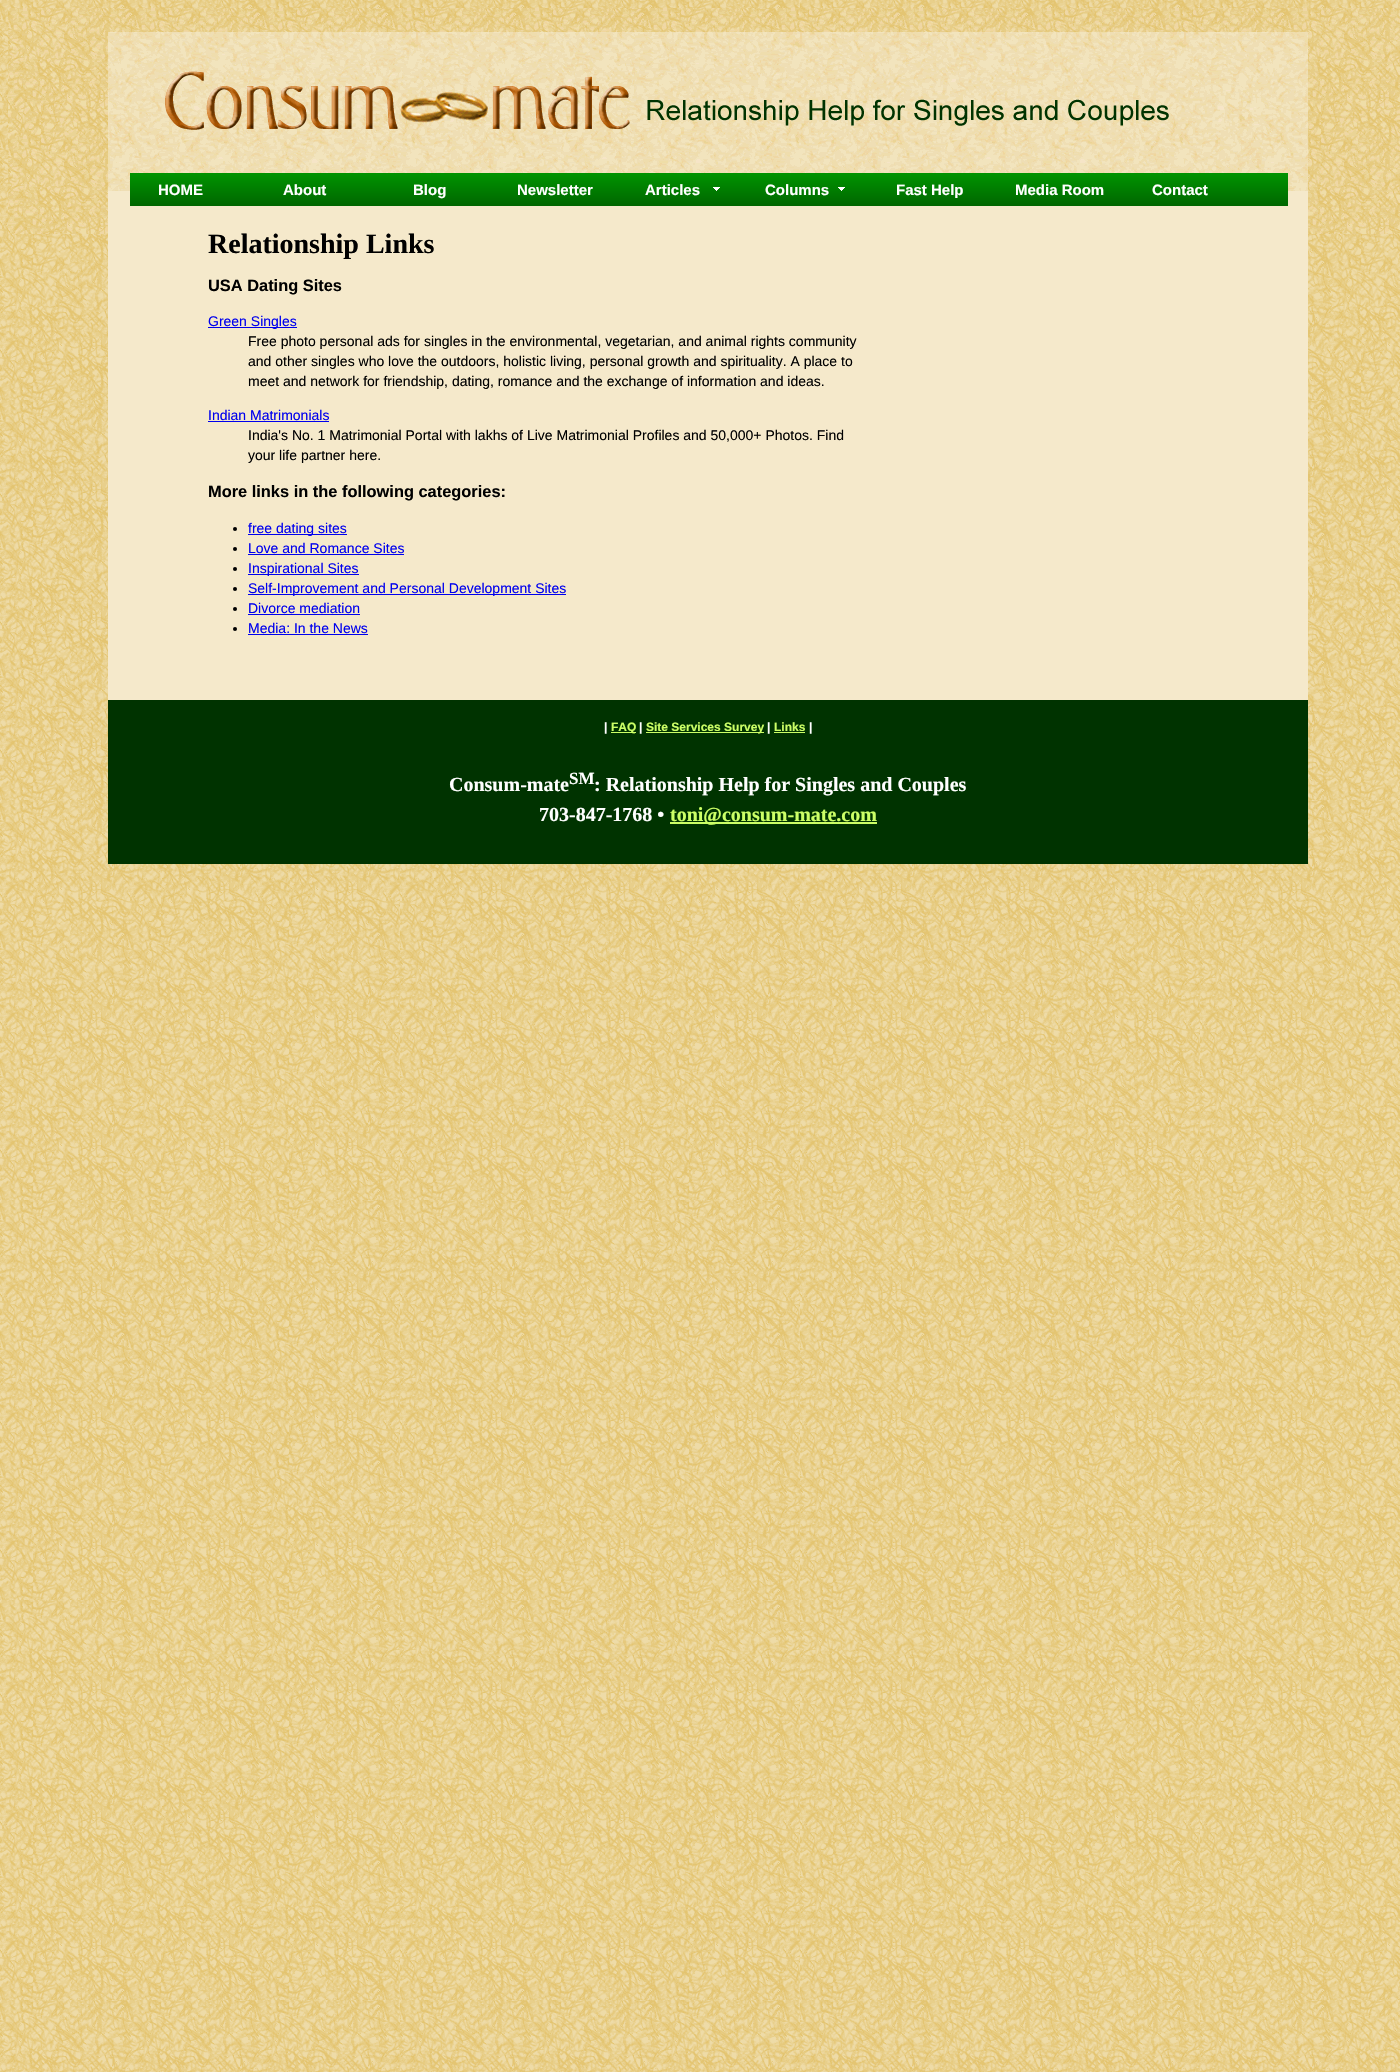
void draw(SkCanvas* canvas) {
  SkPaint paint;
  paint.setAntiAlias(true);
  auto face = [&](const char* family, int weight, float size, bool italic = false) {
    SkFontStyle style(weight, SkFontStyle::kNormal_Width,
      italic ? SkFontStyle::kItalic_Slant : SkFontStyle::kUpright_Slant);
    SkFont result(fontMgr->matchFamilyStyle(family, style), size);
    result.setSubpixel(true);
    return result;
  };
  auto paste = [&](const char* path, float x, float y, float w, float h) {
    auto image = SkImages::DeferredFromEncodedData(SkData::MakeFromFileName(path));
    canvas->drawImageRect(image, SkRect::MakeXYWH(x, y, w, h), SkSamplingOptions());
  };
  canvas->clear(0xffffffff);
  paste("img/1.png", 0, 0, 1400, 2072);
  paste("img/2.png", 8, 8, 1392, 226);
  {
    const SkColor colors[] = {0xff009400, 0xff006600};
    const float stops[] = {0, 1};
    const SkPoint ends[] = {{709, 173}, {709, 206}};
    paint.setShader(SkGradientShader::MakeLinear(ends, colors, stops, 2, SkTileMode::kClamp));
    paint.setAlpha(255);
  }
  canvas->drawRect(SkRect::MakeXYWH(130, 173, 1158, 33), paint);
  paste("img/3.png", 713, 187, 7, 4);
  paste("img/3.png", 838, 187, 7, 4);
  paint.setShader(nullptr);
  {
    const struct { float x, y, w, h; SkColor color; } items[] = {
      {108, 234, 1200, 466, 0xfff5e9cb},
      {208, 327, 89, 1, 0xff0000ee},
      {208, 421, 121, 1, 0xff0000ee},
    };
    for (auto [x, y, w, h, color] : items) {
      paint.setColor(color);
      canvas->drawRect(SkRect::MakeXYWH(x, y, w, h), paint);
    }
  }
  paint.setColor(0xff000000);
  canvas->drawCircle(235, 529, 2, paint);
  paint.setColor(0xff0000ee);
  canvas->drawRect(SkRect::MakeXYWH(248, 534, 99, 1), paint);
  paint.setColor(0xff000000);
  canvas->drawCircle(235, 549, 2, paint);
  paint.setColor(0xff0000ee);
  canvas->drawRect(SkRect::MakeXYWH(248, 554, 156, 1), paint);
  paint.setColor(0xff000000);
  canvas->drawCircle(235, 569, 2, paint);
  paint.setColor(0xff0000ee);
  canvas->drawRect(SkRect::MakeXYWH(248, 574, 111, 1), paint);
  paint.setColor(0xff000000);
  canvas->drawCircle(235, 589, 2, paint);
  paint.setColor(0xff0000ee);
  canvas->drawRect(SkRect::MakeXYWH(248, 594, 318, 1), paint);
  paint.setColor(0xff000000);
  canvas->drawCircle(235, 609, 2, paint);
  paint.setColor(0xff0000ee);
  canvas->drawRect(SkRect::MakeXYWH(248, 614, 112, 1), paint);
  paint.setColor(0xff000000);
  canvas->drawCircle(235, 629, 2, paint);
  {
    const struct { float x, y, w, h; SkColor color; } items[] = {
      {248, 634, 120, 1, 0xff0000ee},
      {108, 700, 1200, 164, 0xff003300},
      {611, 732, 25, 1, 0xffccff66},
      {646, 732, 118, 1, 0xffccff66},
      {774, 732, 31, 1, 0xffccff66},
      {670, 822, 207, 2, 0xffccff66},
    };
    for (auto [x, y, w, h, color] : items) {
      paint.setColor(color);
      canvas->drawRect(SkRect::MakeXYWH(x, y, w, h), paint);
    }
  }
  auto f0 = face("Liberation Sans", 700, 15);
  paint.setColor(0xffffffff);
  {
    const struct { const char* s; float x, y; } items[] = {
      {"HOME", 158, 195},
      {"About", 283, 195},
      {"Blog", 413, 195},
      {"Newsletter", 517, 195},
      {"Articles", 645, 195},
      {"Columns", 765, 195},
      {"Fast Help", 896, 195},
      {"Media Room", 1015, 195},
      {"Contact", 1152, 195},
    };
    for (auto [s, x, y] : items) {
      canvas->drawString(s, x, y, f0, paint);
    }
  }
  auto f1 = face("Liberation Serif", 700, 28);
  paint.setColor(0xff000000);
  canvas->drawString("Relationship Links", 208, 253, f1, paint);
  auto f2 = face("Liberation Sans", 700, 16.4f);
  canvas->drawString("USA Dating Sites", 208, 291, f2, paint);
  auto f3 = face("Liberation Sans", 400, 14);
  paint.setColor(0xff0000ee);
  canvas->drawString("Green Singles", 208, 326, f3, paint);
  paint.setColor(0xff000000);
  {
    const struct { const char* s; float x, y; } items[] = {
      {"Free photo personal ads for singles in the environmental, vegetarian, and animal rights community", 248, 346},
      {"and other singles who love the outdoors, holistic living, personal growth and spirituality. A place to", 248, 366},
      {"meet and network for friendship, dating, romance and the exchange of information and ideas.", 248, 386},
    };
    for (auto [s, x, y] : items) {
      canvas->drawString(s, x, y, f3, paint);
    }
  }
  paint.setColor(0xff0000ee);
  canvas->drawString("Indian Matrimonials", 208, 420, f3, paint);
  paint.setColor(0xff000000);
  canvas->drawString("India's No. 1 Matrimonial Portal with lakhs of Live Matrimonial Profiles and 50,000+ Photos. Find", 248, 440, f3, paint);
  canvas->drawString("your life partner here.", 248, 460, f3, paint);
  canvas->drawString("More links in the following categories:", 208, 497, f2, paint);
  paint.setColor(0xff0000ee);
  {
    const struct { const char* s; float x, y; } items[] = {
      {"free dating sites", 248, 533},
      {"Love and Romance Sites", 248, 553},
      {"Inspirational Sites", 248, 573},
      {"Self-Improvement and Personal Development Sites", 248, 593},
      {"Divorce mediation", 248, 613},
      {"Media: In the News", 248, 633},
    };
    for (auto [s, x, y] : items) {
      canvas->drawString(s, x, y, f3, paint);
    }
  }
  auto f4 = face("Liberation Sans", 700, 12);
  paint.setColor(0xffffffff);
  canvas->drawString("|", 604, 731, f4, paint);
  paint.setColor(0xffccff66);
  canvas->drawString("FAQ", 611, 731, f4, paint);
  paint.setColor(0xffffffff);
  canvas->drawString("|", 639, 731, f4, paint);
  paint.setColor(0xffccff66);
  canvas->drawString("Site Services Survey", 646, 731, f4, paint);
  paint.setColor(0xffffffff);
  canvas->drawString("|", 767, 731, f4, paint);
  paint.setColor(0xffccff66);
  canvas->drawString("Links", 774, 731, f4, paint);
  paint.setColor(0xffffffff);
  canvas->drawString("|", 809, 731, f4, paint);
  auto f5 = face("Liberation Serif", 700, 20);
  canvas->drawString("Consum-mate", 449, 791, f5, paint);
  auto f6 = face("Liberation Serif", 700, 17);
  canvas->drawString("SM", 569, 784, f6, paint);
  canvas->drawString(": Relationship Help for Singles and Couples", 594, 791, f5, paint);
  canvas->drawString("703-847-1768 •", 539, 821, f5, paint);
  paint.setColor(0xffccff66);
  canvas->drawString("toni@consum-mate.com", 670, 821, f5, paint);
}
